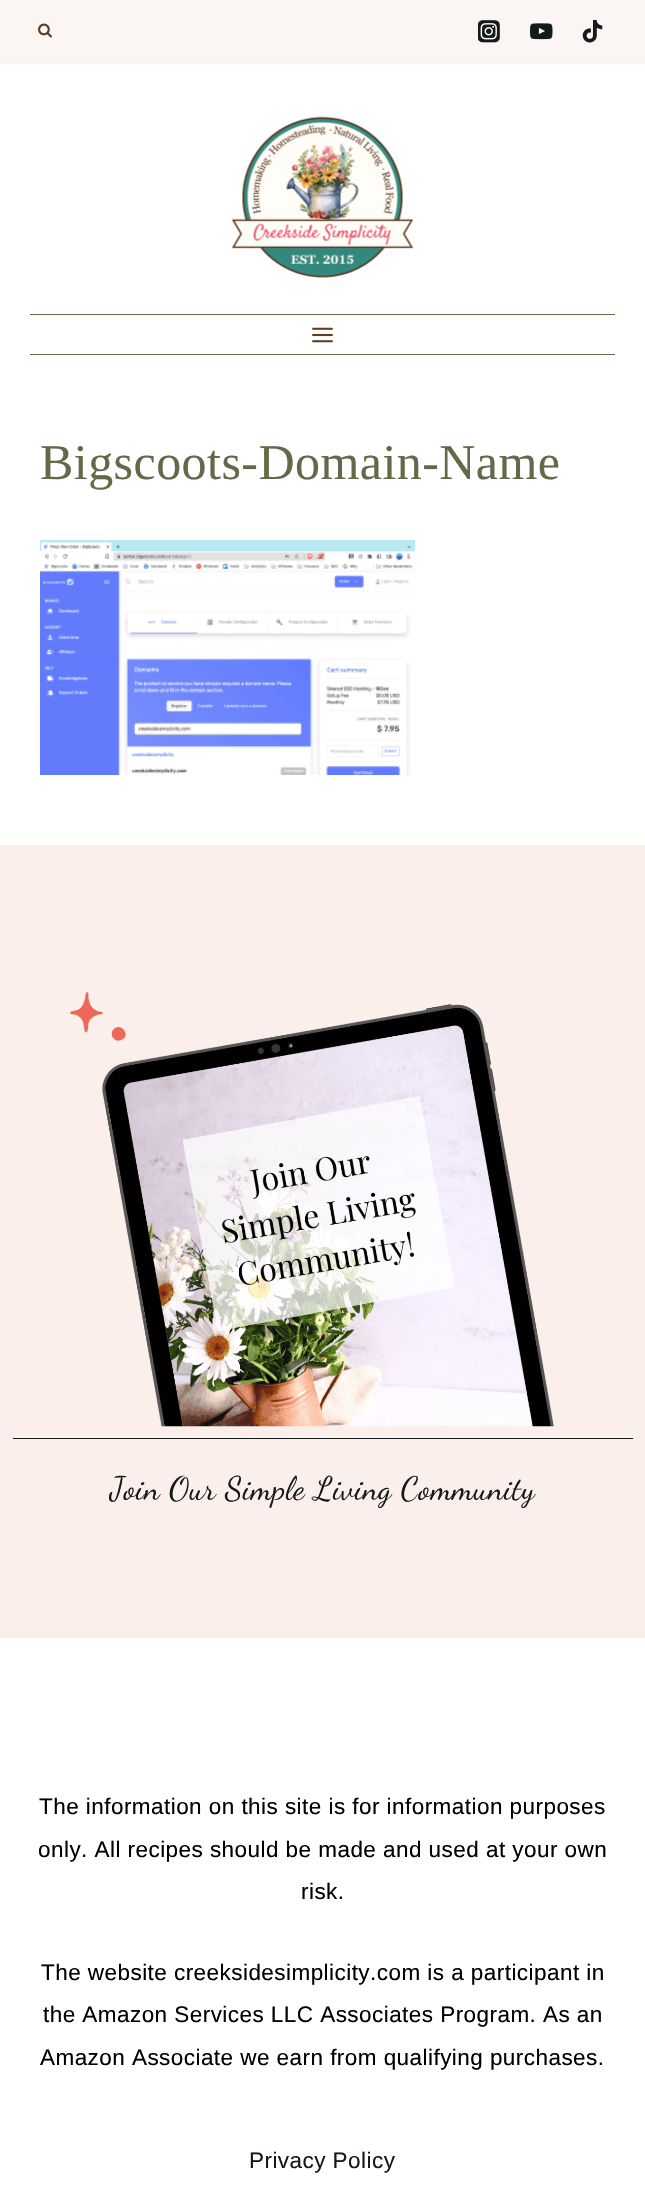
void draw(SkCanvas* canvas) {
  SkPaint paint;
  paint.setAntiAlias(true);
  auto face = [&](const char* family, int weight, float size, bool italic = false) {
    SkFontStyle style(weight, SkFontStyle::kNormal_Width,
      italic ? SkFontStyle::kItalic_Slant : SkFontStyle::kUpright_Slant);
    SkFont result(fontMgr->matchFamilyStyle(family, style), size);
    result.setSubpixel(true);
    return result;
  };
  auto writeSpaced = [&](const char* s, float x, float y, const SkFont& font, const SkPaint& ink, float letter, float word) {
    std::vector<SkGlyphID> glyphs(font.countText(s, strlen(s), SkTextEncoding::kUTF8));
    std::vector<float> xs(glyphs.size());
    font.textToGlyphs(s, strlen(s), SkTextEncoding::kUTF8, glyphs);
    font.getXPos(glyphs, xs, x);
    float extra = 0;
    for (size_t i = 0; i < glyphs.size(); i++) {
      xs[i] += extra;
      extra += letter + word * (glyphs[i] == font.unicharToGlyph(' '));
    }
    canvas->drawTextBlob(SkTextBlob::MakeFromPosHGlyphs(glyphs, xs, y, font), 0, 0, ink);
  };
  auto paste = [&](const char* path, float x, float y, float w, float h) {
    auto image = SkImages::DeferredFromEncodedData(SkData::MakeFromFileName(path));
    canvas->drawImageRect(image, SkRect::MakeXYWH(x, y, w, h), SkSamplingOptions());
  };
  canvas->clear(0xffffffff);
  paint.setColor(0xfffbf5f4);
  canvas->drawRect(SkRect::MakeXYWH(0, 0, 645, 63), paint);
  paint.setColor(0xfffbefeb);
  canvas->drawRect(SkRect::MakeXYWH(0, 63, 645, 1), paint);
  paste("img/1.png", 38, 23, 14, 15);
  paste("img/2.png", 478, 20, 22, 23);
  paste("img/3.png", 530, 23, 23, 17);
  paste("img/4.png", 582, 20, 21, 23);
  paste("img/5.png", 231, 116, 183, 162);
  paint.setColor(0xff646949);
  canvas->drawRect(SkRect::MakeXYWH(30, 314, 585, 1), paint);
  canvas->drawRect(SkRect::MakeXYWH(30, 354, 585, 1), paint);
  paste("img/6.png", 312, 327, 21, 16);
  paste("img/7.png", 40, 540, 375, 235);
  paint.setColor(0xfffbefeb);
  canvas->drawRect(SkRect::MakeXYWH(0, 845, 645, 793), paint);
  paint.setColor(0xff141919);
  canvas->drawRect(SkRect::MakeXYWH(13, 1438, 620, 1), paint);
  paste("img/8.png", 70, 991, 484, 436);
  auto f0 = face("Liberation Serif", 400, 50);
  paint.setColor(0xff646949);
  writeSpaced("Bigscoots-Domain-Name", 40, 479, f0, paint, 0.45f, 0);
  auto f1 = face("Dancing Script", 400, 32.5f);
  paint.setColor(0xff141919);
  writeSpaced("Join Our Simple Living Community", 110, 1499, f1, paint, 0.45f, 0);
  auto f2 = face("Liberation Sans", 400, 22.5f);
  paint.setColor(0xff000000);
  {
    const struct { const char* s; float x, y; } items[] = {
      {"The information on this site is for information purposes", 39, 1814},
      {"only. All recipes should be made and used at your own", 38, 1857},
      {"risk.", 301, 1899},
      {"The website creeksidesimplicity.com is a participant in", 41, 1980},
      {"the Amazon Services LLC Associates Program. As an", 43, 2022},
      {"Amazon Associate we earn from qualifying purchases.", 40, 2065},
    };
    for (auto [s, x, y] : items) {
      writeSpaced(s, x, y, f2, paint, 0.45f, 0);
    }
  }
  paint.setColor(0xff141919);
  writeSpaced("Privacy Policy", 249, 2168, f2, paint, 0.45f, 0);
}
